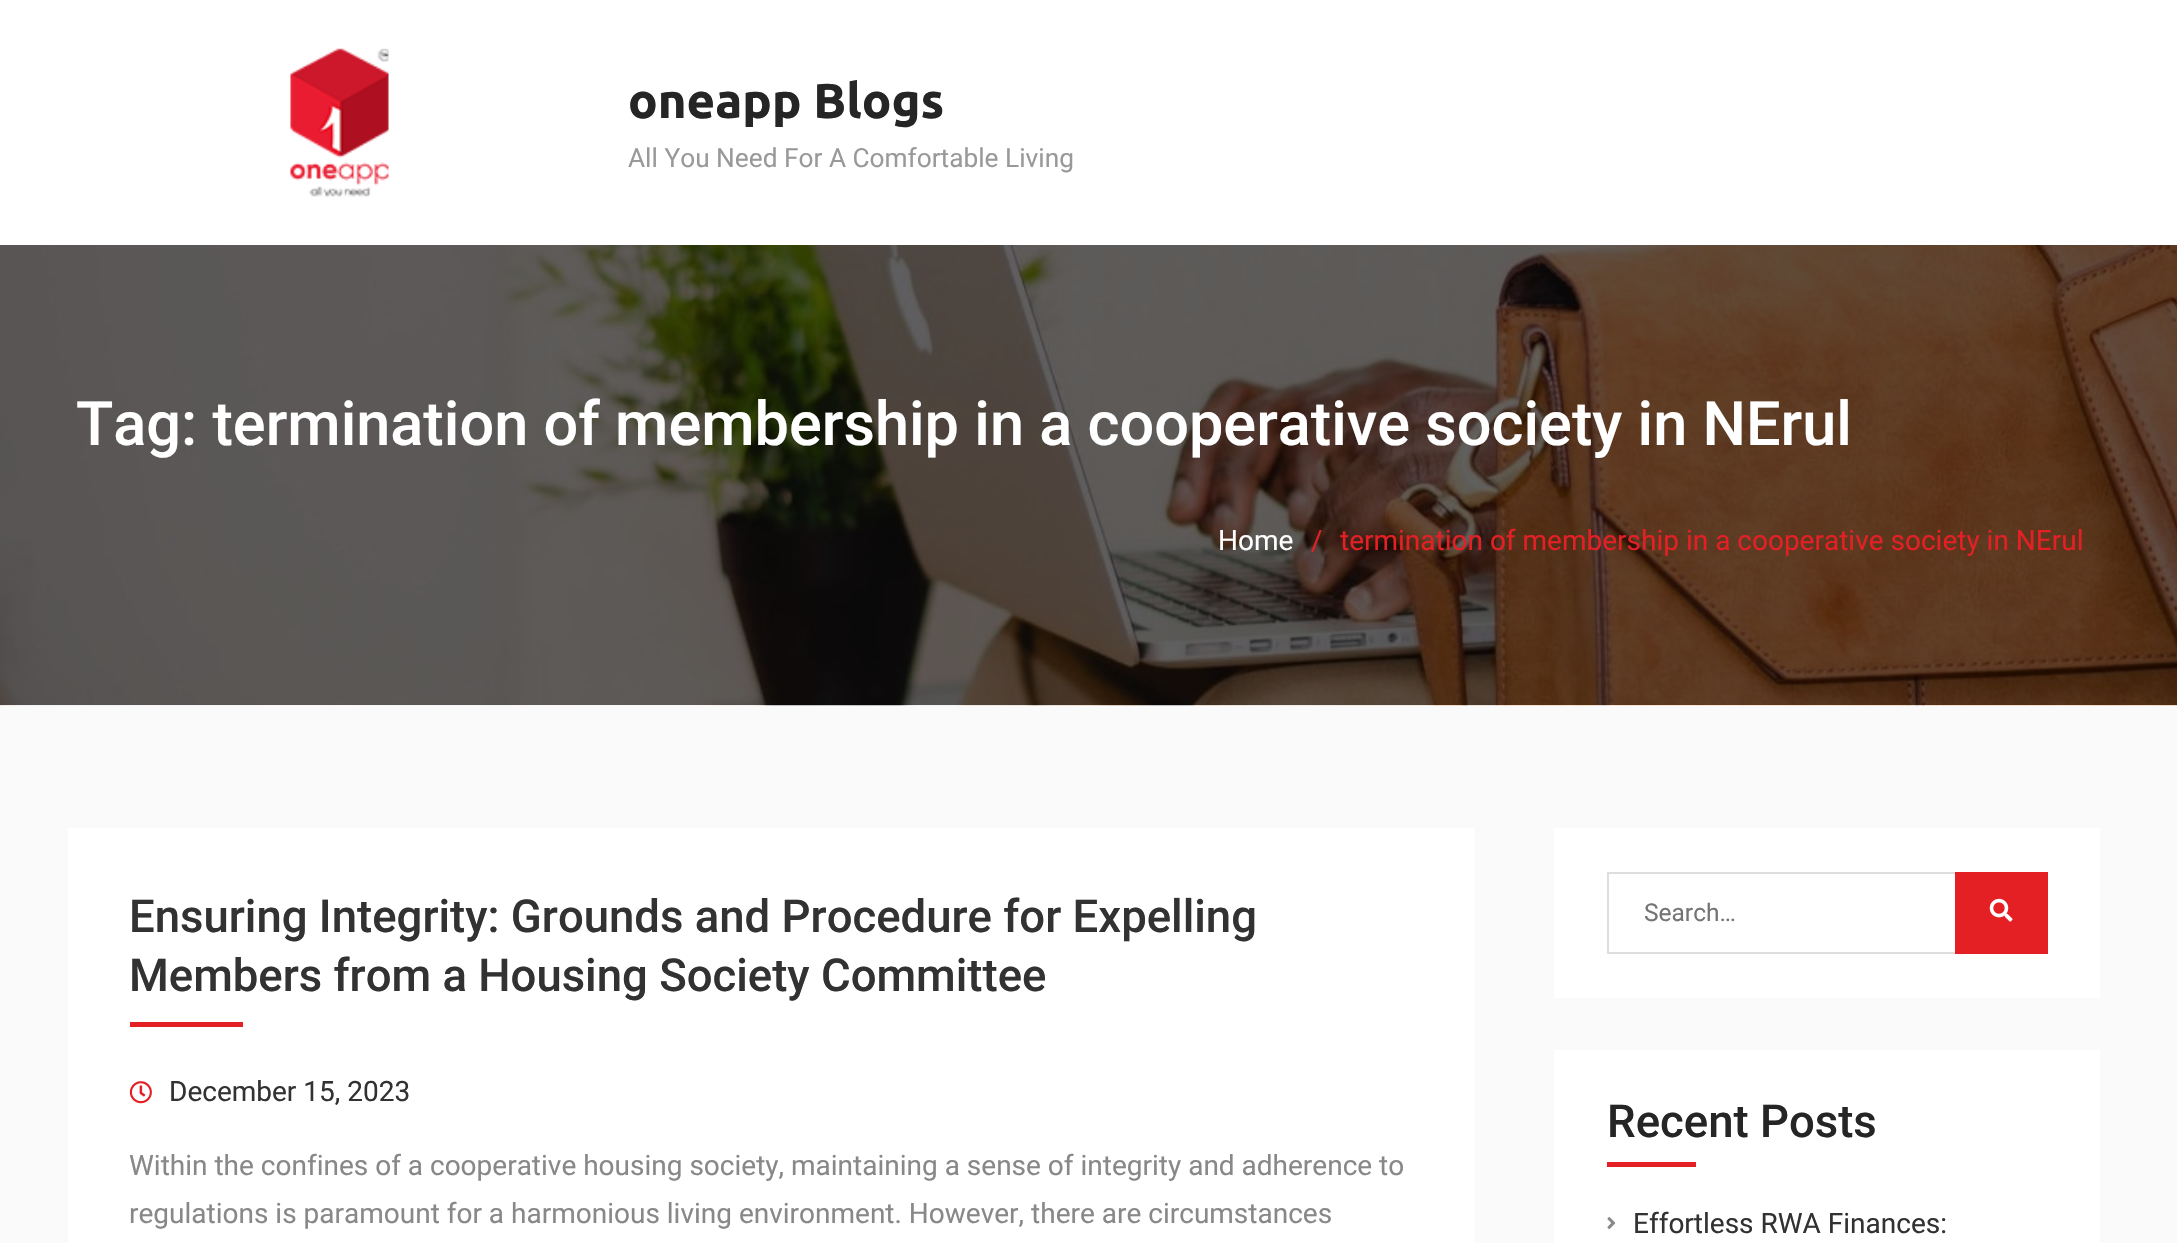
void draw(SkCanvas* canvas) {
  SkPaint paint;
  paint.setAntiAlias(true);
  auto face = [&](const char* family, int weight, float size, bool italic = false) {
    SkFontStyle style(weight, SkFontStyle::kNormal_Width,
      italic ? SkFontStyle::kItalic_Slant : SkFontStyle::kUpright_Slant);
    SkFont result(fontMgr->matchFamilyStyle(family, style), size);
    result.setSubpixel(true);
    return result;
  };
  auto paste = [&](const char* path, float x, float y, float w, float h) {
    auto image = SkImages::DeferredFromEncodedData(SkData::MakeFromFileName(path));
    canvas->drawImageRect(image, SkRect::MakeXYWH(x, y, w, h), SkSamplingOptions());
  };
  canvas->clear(0xfffafafa);
  paint.setColor(0xffffffff);
  canvas->drawRect(SkRect::MakeXYWH(0, 0, 2177, 245), paint);
  paste("img/1.png", 290, 48, 99, 149);
  paste("img/2.png", 0, 245, 2177, 461);
  canvas->drawRect(SkRect::MakeXYWH(68, 828, 1407, 415), paint);
  paint.setColor(0xffe42025);
  canvas->drawRect(SkRect::MakeXYWH(130, 1022, 113, 5), paint);
  paste("img/3.png", 129, 1081, 23, 23);
  paint.setColor(0xffffffff);
  canvas->drawRect(SkRect::MakeXYWH(1554, 828, 546, 170), paint);
  paint.setStroke(true);
  paint.setStrokeWidth(2);
  paint.setColor(0xffdddddd);
  canvas->drawRect(SkRect::MakeXYWH(1608, 873, 377, 80), paint);
  paint.setStroke(false);
  paint.setColor(0xffe42025);
  canvas->drawRect(SkRect::MakeXYWH(1955, 872, 93, 82), paint);
  paste("img/4.png", 1989, 898, 24, 24);
  paint.setColor(0xffffffff);
  canvas->drawRect(SkRect::MakeXYWH(1554, 1050, 546, 193), paint);
  paint.setColor(0xffe42025);
  canvas->drawRect(SkRect::MakeXYWH(1607, 1162, 89, 5), paint);
  paste("img/5.png", 1607, 1217, 9, 12);
  auto f0 = face("Ubuntu", 700, 49);
  paint.setColor(0xff252525);
  canvas->drawString("oneapp Blogs", 628, 118, f0, paint);
  auto f1 = face("Roboto", 400, 26.25f);
  paint.setColor(0xff999999);
  canvas->drawString("All You Need For A Comfortable Living", 628, 167, f1, paint);
  auto f2 = face("Roboto", 500, 61.25f);
  paint.setColor(0xffffffff);
  canvas->drawString("Tag: termination of membership in a cooperative society in NErul", 76, 445, f2, paint);
  auto f3 = face("Roboto", 400, 28);
  canvas->drawString("Home", 1218, 550, f3, paint);
  paint.setColor(0xffe42025);
  canvas->drawString("/", 1311, 550, f3, paint);
  canvas->drawString("termination of membership in a cooperative society in NErul", 1340, 550, f3, paint);
  auto f4 = face("Roboto", 500, 45.5f);
  paint.setColor(0xff323232);
  canvas->drawString("Ensuring Integrity: Grounds and Procedure for Expelling", 129, 932, f4, paint);
  canvas->drawString("Members from a Housing Society Committee", 129, 991, f4, paint);
  canvas->drawString("December 15, 2023", 169, 1101, f3, paint);
  paint.setColor(0xff888888);
  canvas->drawString("Within the confines of a cooperative housing society, maintaining a sense of integrity and adherence to", 129, 1175, f3, paint);
  canvas->drawString("regulations is paramount for a harmonious living environment. However, there are circumstances", 129, 1223, f3, paint);
  auto f5 = face("Roboto", 400, 24.5f);
  paint.setColor(0xff757575);
  canvas->drawString("Search…", 1644, 921, f5, paint);
  paint.setColor(0xff252525);
  canvas->drawString("Recent Posts", 1607, 1137, f4, paint);
  paint.setColor(0xff323232);
  canvas->drawString("Effortless RWA Finances:", 1633, 1233, f3, paint);
}
